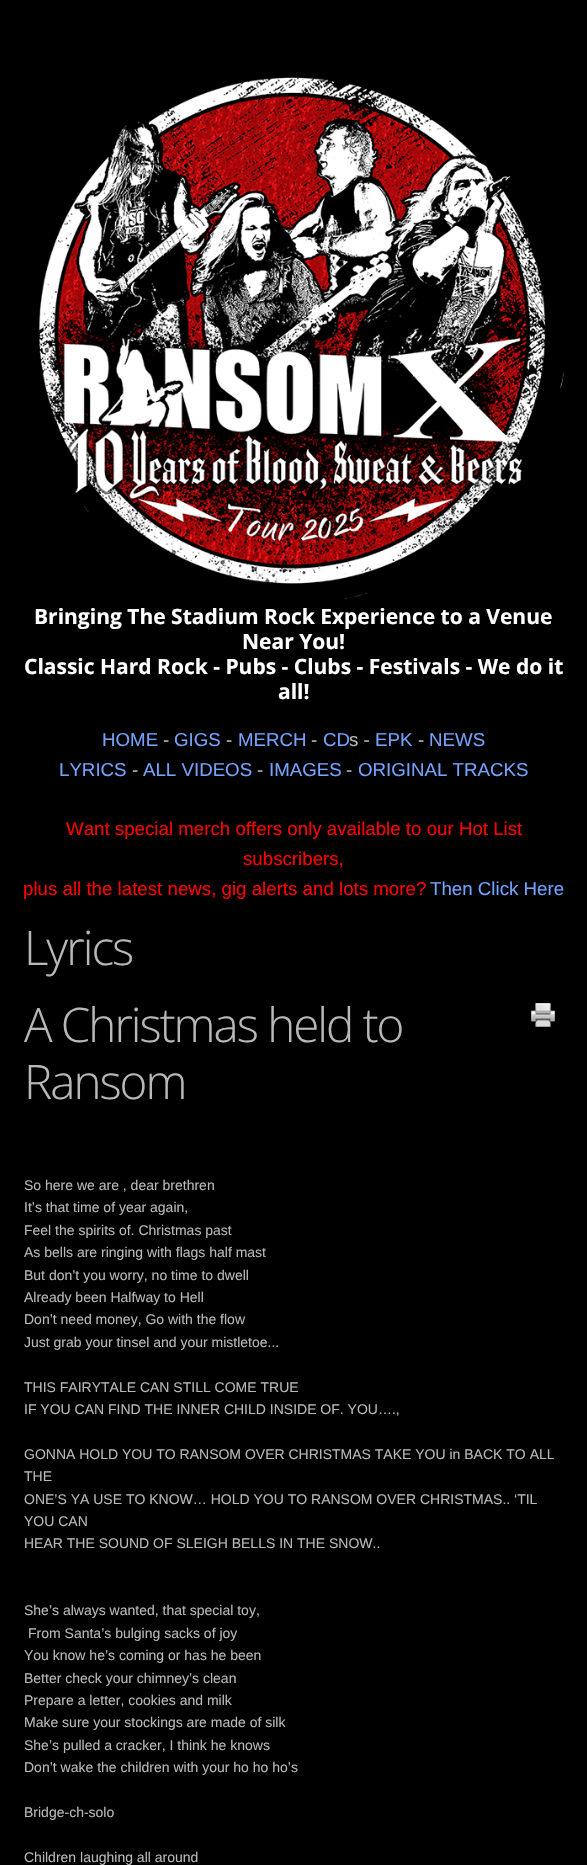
void draw(SkCanvas* canvas) {
  SkPaint paint;
  paint.setAntiAlias(true);
  auto face = [&](const char* family, int weight, float size, bool italic = false) {
    SkFontStyle style(weight, SkFontStyle::kNormal_Width,
      italic ? SkFontStyle::kItalic_Slant : SkFontStyle::kUpright_Slant);
    SkFont result(fontMgr->matchFamilyStyle(family, style), size);
    result.setSubpixel(true);
    return result;
  };
  auto writeSpaced = [&](const char* s, float x, float y, const SkFont& font, const SkPaint& ink, float letter, float word) {
    std::vector<SkGlyphID> glyphs(font.countText(s, strlen(s), SkTextEncoding::kUTF8));
    std::vector<float> xs(glyphs.size());
    font.textToGlyphs(s, strlen(s), SkTextEncoding::kUTF8, glyphs);
    font.getXPos(glyphs, xs, x);
    float extra = 0;
    for (size_t i = 0; i < glyphs.size(); i++) {
      xs[i] += extra;
      extra += letter + word * (glyphs[i] == font.unicharToGlyph(' '));
    }
    canvas->drawTextBlob(SkTextBlob::MakeFromPosHGlyphs(glyphs, xs, y, font), 0, 0, ink);
  };
  auto paste = [&](const char* path, float x, float y, float w, float h) {
    auto image = SkImages::DeferredFromEncodedData(SkData::MakeFromFileName(path));
    canvas->drawImageRect(image, SkRect::MakeXYWH(x, y, w, h), SkSamplingOptions());
  };
  canvas->clear(0xff000000);
  paste("img/1.png", 38, 77, 526, 522);
  paste("img/2.png", 531, 1003, 24, 24);
  paste("img/3.png", 531, 1003, 24, 24);
  auto f0 = face("Open Sans", 700, 21);
  paint.setColor(0xffffffff);
  {
    const struct { const char* s; float x, y; } items[] = {
      {"Bringing The Stadium Rock Experience to a Venue", 34, 624},
      {"Near You!", 242, 649},
      {"Classic Hard Rock - Pubs - Clubs - Festivals - We do it", 24, 674},
      {"all!", 278, 699},
    };
    for (auto [s, x, y] : items) {
      canvas->drawString(s, x, y, f0, paint);
    }
  }
  auto f1 = face("Liberation Sans", 400, 18.7f);
  paint.setColor(0xff73a2ff);
  canvas->drawString("HOME", 102, 746, f1, paint);
  paint.setColor(0xffb8b8b8);
  canvas->drawString("-", 163, 746, f1, paint);
  paint.setColor(0xff73a2ff);
  canvas->drawString("GIGS", 174, 746, f1, paint);
  paint.setColor(0xffb8b8b8);
  canvas->drawString("-", 226, 746, f1, paint);
  paint.setColor(0xff73a2ff);
  canvas->drawString("MERCH", 238, 746, f1, paint);
  paint.setColor(0xffb8b8b8);
  canvas->drawString("-", 311, 746, f1, paint);
  paint.setColor(0xff73a2ff);
  canvas->drawString("CD", 323, 746, f1, paint);
  paint.setColor(0xffb8b8b8);
  canvas->drawString("s -", 349, 746, f1, paint);
  paint.setColor(0xff73a2ff);
  canvas->drawString("EPK", 375, 746, f1, paint);
  paint.setColor(0xffb8b8b8);
  canvas->drawString("-", 418, 746, f1, paint);
  paint.setColor(0xff73a2ff);
  canvas->drawString("NEWS", 429, 746, f1, paint);
  canvas->drawString("LYRICS", 59, 776, f1, paint);
  paint.setColor(0xffb8b8b8);
  canvas->drawString("-", 132, 776, f1, paint);
  paint.setColor(0xff73a2ff);
  canvas->drawString("ALL VIDEOS", 143, 776, f1, paint);
  paint.setColor(0xffb8b8b8);
  canvas->drawString("-", 257, 776, f1, paint);
  paint.setColor(0xff73a2ff);
  canvas->drawString("IMAGES", 269, 776, f1, paint);
  paint.setColor(0xffb8b8b8);
  canvas->drawString("-", 346, 776, f1, paint);
  paint.setColor(0xff73a2ff);
  canvas->drawString("ORIGINAL TRACKS", 358, 776, f1, paint);
  paint.setColor(0xffff0000);
  {
    const struct { const char* s; float x, y; } items[] = {
      {"Want special merch offers only available to our Hot List", 66, 835},
      {"subscribers,", 243, 865},
      {"plus all the latest news, gig alerts and lots more?", 23, 895},
    };
    for (auto [s, x, y] : items) {
      canvas->drawString(s, x, y, f1, paint);
    }
  }
  paint.setColor(0xff73a2ff);
  canvas->drawString("Then Click Here", 430, 895, f1, paint);
  auto f2 = face("Open Sans", 300, 47.5f);
  paint.setColor(0xffb8b8b8);
  {
    const struct { const char* s; float x, y; } items[] = {
      {"Lyrics", 24, 965},
      {"A Christmas held to", 24, 1042},
      {"Ransom", 24, 1099},
    };
    for (auto [s, x, y] : items) {
      writeSpaced(s, x, y, f2, paint, -2, 0);
    }
  }
  auto f3 = face("Liberation Sans", 400, 14);
  {
    const struct { const char* s; float x, y; } items[] = {
      {"So here we are , dear brethren", 24, 1190},
      {"It’s that time of year again,", 24, 1212},
      {"Feel the spirits of. Christmas past", 24, 1235},
      {"As bells are ringing with flags half mast", 24, 1257},
      {"But don’t you worry, no time to dwell", 24, 1280},
      {"Already been Halfway to Hell", 24, 1302},
      {"Don’t need money, Go with the flow", 24, 1324},
      {"Just grab your tinsel and your mistletoe...", 24, 1347},
      {"THIS FAIRYTALE CAN STILL COME TRUE", 24, 1392},
      {"IF YOU CAN FIND THE INNER CHILD INSIDE OF. YOU….,", 24, 1414},
      {"GONNA HOLD YOU TO RANSOM OVER CHRISTMAS TAKE YOU in BACK TO ALL", 24, 1459},
      {"THE", 24, 1481},
      {"ONE’S YA USE TO KNOW… HOLD YOU TO RANSOM OVER CHRISTMAS.. ‘TIL", 24, 1504},
      {"YOU CAN", 24, 1526},
      {"HEAR THE SOUND OF SLEIGH BELLS IN THE SNOW..", 24, 1548},
      {"She’s always wanted, that special toy,", 24, 1615},
      {"From Santa’s bulging sacks of joy", 28, 1638},
      {"You know he’s coming or has he been", 24, 1660},
      {"Better check your chimney’s clean", 24, 1683},
      {"Prepare a letter, cookies and milk", 24, 1705},
      {"Make sure your stockings are made of silk", 24, 1727},
      {"She’s pulled a cracker, I think he knows", 24, 1750},
      {"Don’t wake the children with your ho ho ho’s", 24, 1772},
      {"Bridge-ch-solo", 24, 1817},
      {"Children laughing all around", 24, 1862},
    };
    for (auto [s, x, y] : items) {
      canvas->drawString(s, x, y, f3, paint);
    }
  }
}
